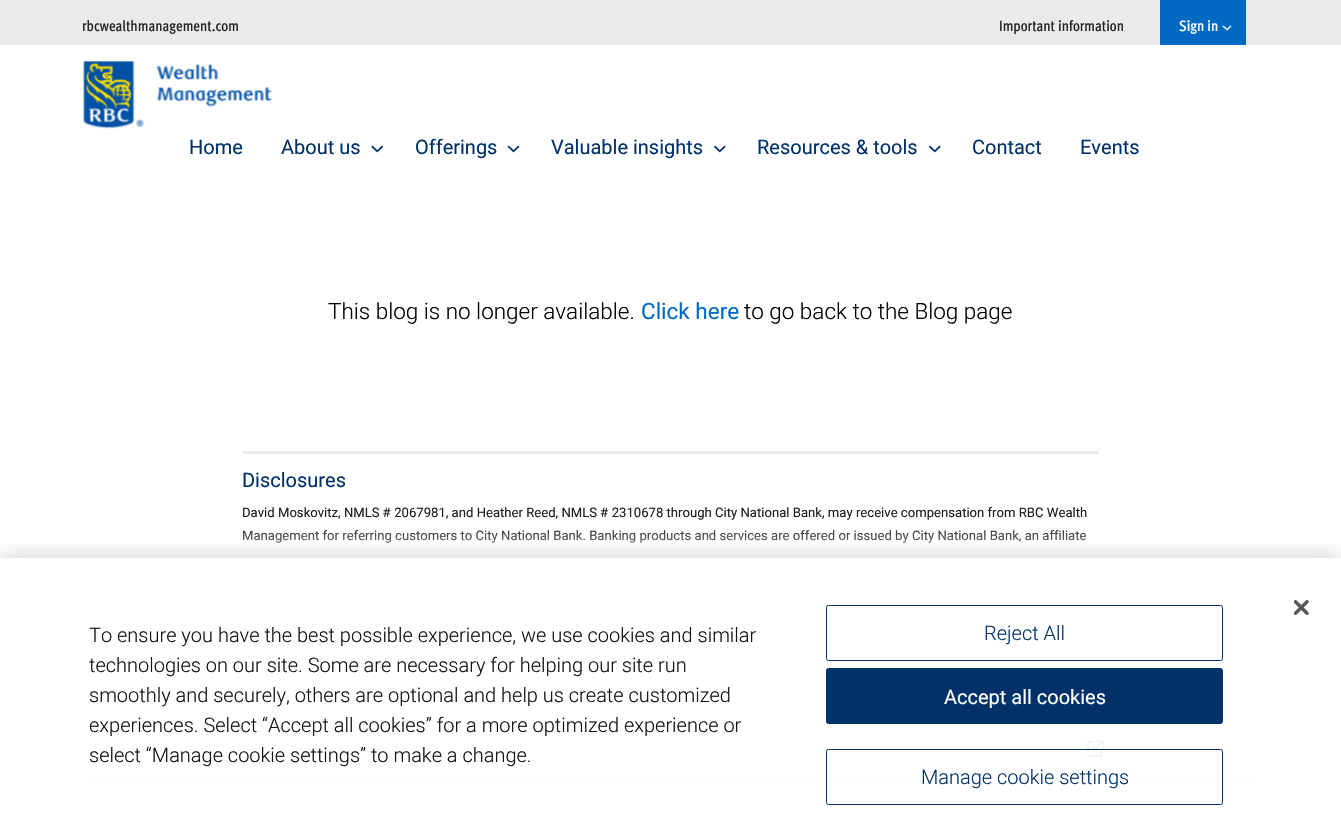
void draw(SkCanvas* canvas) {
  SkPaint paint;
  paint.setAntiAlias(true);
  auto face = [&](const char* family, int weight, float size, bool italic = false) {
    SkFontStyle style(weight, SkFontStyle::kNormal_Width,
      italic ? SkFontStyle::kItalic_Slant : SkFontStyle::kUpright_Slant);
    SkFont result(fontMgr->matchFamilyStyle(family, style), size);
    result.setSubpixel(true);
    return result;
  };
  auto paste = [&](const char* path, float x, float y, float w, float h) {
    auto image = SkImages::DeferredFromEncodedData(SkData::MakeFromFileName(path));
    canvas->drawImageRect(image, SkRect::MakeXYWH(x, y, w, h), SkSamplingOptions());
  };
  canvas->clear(0xffffffff);
  paint.setColor(0xffeaeaea);
  canvas->drawRect(SkRect::MakeXYWH(0, 0, 1341, 45), paint);
  paint.setColor(0xff006ac3);
  canvas->drawRect(SkRect::MakeXYWH(1160, 0, 86, 45), paint);
  paste("img/1.png", 1222, 25, 10, 6);
  paste("img/2.png", 83, 61, 189, 68);
  paste("img/3.png", 371, 145, 13, 8);
  paste("img/4.png", 507, 145, 13, 8);
  paste("img/5.png", 713, 145, 13, 8);
  paste("img/5.png", 928, 145, 13, 8);
  paint.setColor(0xffeaeaea);
  canvas->drawRect(SkRect::MakeXYWH(243, 451, 856, 3), paint);
  paint.setColor(0xfff6f6f7);
  canvas->drawRect(SkRect::MakeXYWH(0, 690, 1341, 144), paint);
  paste("img/6.png", 1087, 740, 17, 17);
  paint.setColor(0xffe1ebef);
  canvas->drawRect(SkRect::MakeXYWH(84, 783, 1175, 1), paint);
  auto f0 = face("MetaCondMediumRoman", 500, 15);
  paint.setColor(0xff252525);
  canvas->drawString("rbcwealthmanagement.com", 82, 31, f0, paint);
  canvas->drawString("Important information", 999, 31, f0, paint);
  paint.setColor(0xffffffff);
  canvas->drawString("Sign in", 1179, 31, f0, paint);
  auto f1 = face("Roboto", 400, 20);
  paint.setColor(0xff003168);
  {
    const struct { const char* s; float x, y; } items[] = {
      {"Home", 189, 154},
      {"About us", 281, 154},
      {"Offerings", 415, 154},
      {"Valuable insights", 551, 154},
      {"Resources & tools", 757, 154},
      {"Contact", 972, 154},
      {"Events", 1080, 154},
    };
    for (auto [s, x, y] : items) {
      canvas->drawString(s, x, y, f1, paint);
    }
  }
  auto f2 = face("Roboto", 300, 22.5f);
  paint.setColor(0xff000000);
  canvas->drawString("This blog is no longer available.", 328, 319, f2, paint);
  auto f3 = face("Roboto", 400, 22.5f);
  paint.setColor(0xff006ac3);
  canvas->drawString("Click here", 641, 319, f3, paint);
  paint.setColor(0xff000000);
  canvas->drawString("to go back to the Blog page", 744, 319, f2, paint);
  paint.setColor(0xff003168);
  canvas->drawString("Disclosures", 242, 487, f1, paint);
  auto f4 = face("Roboto", 400, 13.12f);
  paint.setColor(0xff1d1d1d);
  canvas->drawString("David Moskovitz, NMLS # 2067981, and Heather Reed, NMLS # 2310678 through City National Bank, may receive compensation from RBC Wealth", 242, 517, f4, paint);
  canvas->drawString("Management for referring customers to City National Bank. Banking products and services are offered or issued by City National Bank, an affiliate", 242, 540, f4, paint);
  {
    const SkColor colors[] = {0x00ffffff, 0xffffffff};
    const float stops[] = {0, 1};
    const SkPoint ends[] = {{671, 525}, {671, 578}};
    paint.setShader(SkGradientShader::MakeLinear(ends, colors, stops, 2, SkTileMode::kClamp));
    paint.setAlpha(255);
  }
  canvas->drawRect(SkRect::MakeXYWH(243, 530, 844, 13), paint);
  canvas->save();
  canvas->clipRect(SkRect::MakeXYWH(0, 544, 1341, 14));
  paint.setShader(nullptr);
  paint.setColor(0x33000000);
  paint.setMaskFilter(SkMaskFilter::MakeBlur(kNormal_SkBlurStyle, 11));
  canvas->drawRect(SkRect::MakeXYWH(0, 558, 1341, 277), paint);
  paint.setMaskFilter(nullptr);
  canvas->restore();
  paint.setColor(0xe6ffffff);
  canvas->drawRect(SkRect::MakeXYWH(0, 690, 1341, 144), paint);
  paste("img/7.png", 1294, 600, 15, 15);
  auto f5 = face("Roboto", 300, 20);
  paint.setColor(0xff121212);
  {
    const struct { const char* s; float x, y; } items[] = {
      {"To ensure you have the best possible experience, we use cookies and similar", 89, 642},
      {"technologies on our site. Some are necessary for helping our site run", 89, 672},
      {"smoothly and securely, others are optional and help us create customized", 89, 702},
      {"experiences. Select “Accept all cookies” for a more optimized experience or", 89, 732},
      {"select “Manage cookie settings” to make a change.", 89, 762},
    };
    for (auto [s, x, y] : items) {
      canvas->drawString(s, x, y, f5, paint);
    }
  }
  paint.setStroke(true);
  paint.setStrokeWidth(1);
  paint.setColor(0xff003169);
  canvas->drawRoundRect(SkRect::MakeXYWH(826.5f, 605.5f, 396, 55), 2, 2, paint);
  paint.setStroke(false);
  paint.setColor(0xff003168);
  canvas->drawString("Reject All", 984, 640, f5, paint);
  paint.setColor(0xff003169);
  canvas->drawRoundRect(SkRect::MakeXYWH(826.5f, 668.5f, 396, 55), 2, 2, paint);
  paint.setStroke(true);
  canvas->drawRoundRect(SkRect::MakeXYWH(826.5f, 668.5f, 396, 55), 2, 2, paint);
  paint.setStroke(false);
  paint.setColor(0xffffffff);
  canvas->drawString("Accept all cookies", 944, 704, f1, paint);
  paint.setStroke(true);
  paint.setColor(0xff003169);
  canvas->drawRoundRect(SkRect::MakeXYWH(826.5f, 749.5f, 396, 55), 2, 2, paint);
  paint.setStroke(false);
  paint.setColor(0xff003168);
  canvas->drawString("Manage cookie settings", 921, 784, f5, paint);
}
